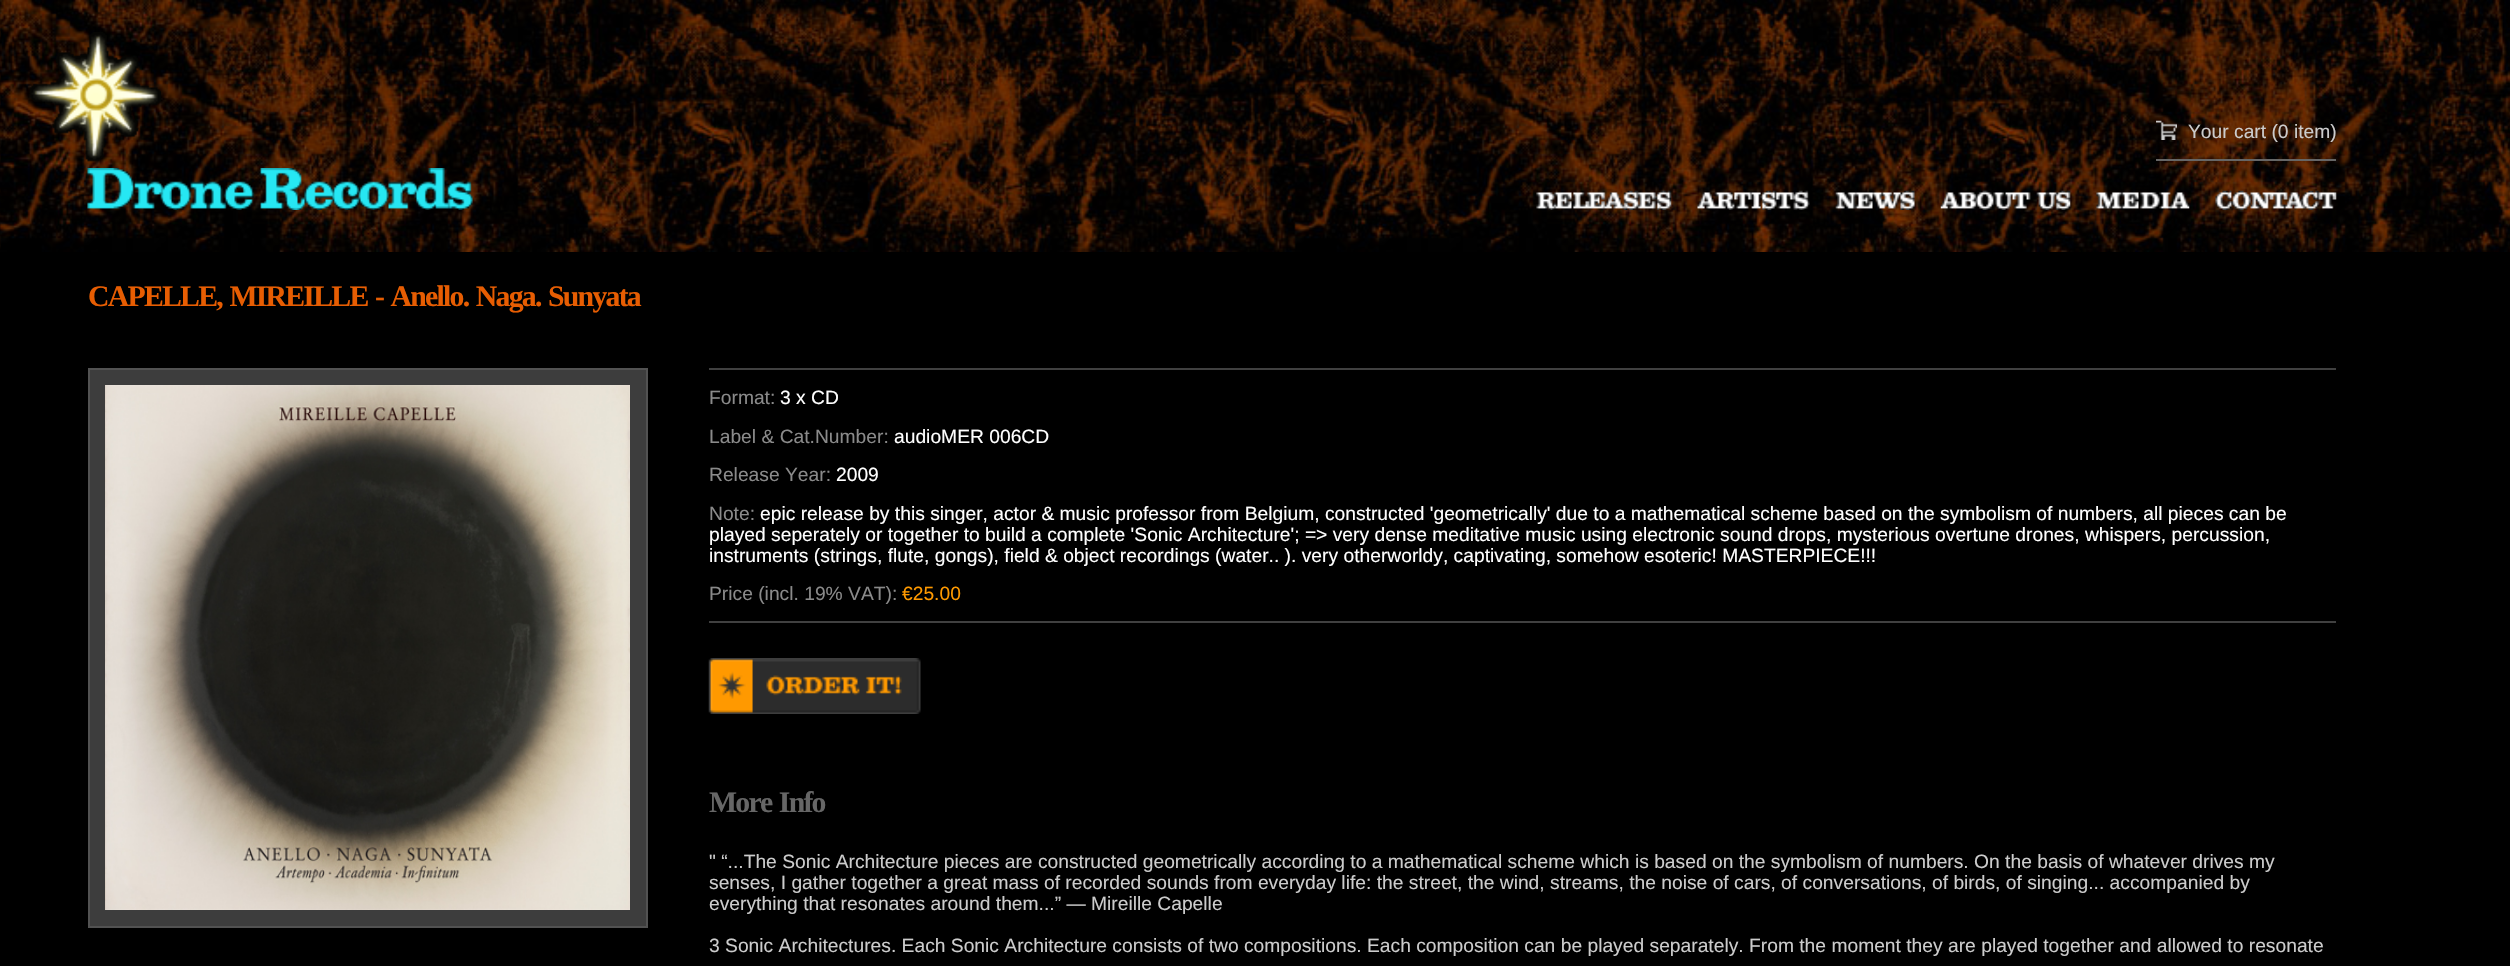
void draw(SkCanvas* canvas) {
  SkPaint paint;
  paint.setAntiAlias(true);
  auto face = [&](const char* family, int weight, float size, bool italic = false) {
    SkFontStyle style(weight, SkFontStyle::kNormal_Width,
      italic ? SkFontStyle::kItalic_Slant : SkFontStyle::kUpright_Slant);
    SkFont result(fontMgr->matchFamilyStyle(family, style), size);
    result.setSubpixel(true);
    return result;
  };
  auto writeSpaced = [&](const char* s, float x, float y, const SkFont& font, const SkPaint& ink, float letter, float word) {
    std::vector<SkGlyphID> glyphs(font.countText(s, strlen(s), SkTextEncoding::kUTF8));
    std::vector<float> xs(glyphs.size());
    font.textToGlyphs(s, strlen(s), SkTextEncoding::kUTF8, glyphs);
    font.getXPos(glyphs, xs, x);
    float extra = 0;
    for (size_t i = 0; i < glyphs.size(); i++) {
      xs[i] += extra;
      extra += letter + word * (glyphs[i] == font.unicharToGlyph(' '));
    }
    canvas->drawTextBlob(SkTextBlob::MakeFromPosHGlyphs(glyphs, xs, y, font), 0, 0, ink);
  };
  auto paste = [&](const char* path, float x, float y, float w, float h) {
    auto image = SkImages::DeferredFromEncodedData(SkData::MakeFromFileName(path));
    canvas->drawImageRect(image, SkRect::MakeXYWH(x, y, w, h), SkSamplingOptions());
  };
  canvas->clear(0xff000000);
  paste("img/1.png", 0, 0, 2510, 252);
  paste("img/2.png", 29, 32, 132, 130);
  paste("img/3.png", 87, 168, 386, 42);
  paint.setColor(0xff666666);
  canvas->drawRect(SkRect::MakeXYWH(2156, 159, 180, 2), paint);
  paste("img/4.png", 2156, 120, 21, 20);
  paste("img/5.png", 1536, 190, 136, 20);
  paste("img/6.png", 1697, 190, 113, 20);
  paste("img/7.png", 1835, 190, 80, 20);
  paste("img/8.png", 1940, 190, 131, 20);
  paste("img/9.png", 2096, 192, 94, 17);
  paste("img/10.png", 2215, 190, 122, 20);
  paint.setColor(0xff3d3d3d);
  canvas->drawRect(SkRect::MakeXYWH(89, 369, 558, 558), paint);
  paint.setStroke(true);
  paint.setStrokeWidth(2);
  paint.setColor(0xff525252);
  canvas->drawRect(SkRect::MakeXYWH(89, 369, 558, 558), paint);
  paste("img/11.png", 105, 385, 525, 525);
  paint.setStroke(false);
  paint.setColor(0xff404040);
  canvas->drawRect(SkRect::MakeXYWH(709, 368, 1627, 2), paint);
  canvas->drawRect(SkRect::MakeXYWH(709, 621, 1627, 2), paint);
  paste("img/12.png", 708, 658, 213, 56);
  auto f0 = face("Liberation Sans", 400, 19.25f);
  paint.setColor(0xffcccccc);
  canvas->drawString("Your cart (0 item)", 2188, 138, f0, paint);
  auto f1 = face("Liberation Serif", 700, 29.75f);
  paint.setColor(0xffe75d02);
  writeSpaced("CAPELLE, MIREILLE - Anello. Naga. Sunyata", 88, 306, f1, paint, -1.75f, 1.75f);
  paint.setColor(0xff8a8a8a);
  canvas->drawString("Format:", 709, 404, f0, paint);
  paint.setColor(0xffffffff);
  canvas->drawString("3 x CD", 780, 404, f0, paint);
  paint.setColor(0xff8a8a8a);
  canvas->drawString("Label & Cat.Number:", 709, 443, f0, paint);
  paint.setColor(0xffffffff);
  canvas->drawString("audioMER 006CD", 894, 443, f0, paint);
  paint.setColor(0xff8a8a8a);
  canvas->drawString("Release Year:", 709, 481, f0, paint);
  paint.setColor(0xffffffff);
  canvas->drawString("2009", 836, 481, f0, paint);
  paint.setColor(0xff8a8a8a);
  canvas->drawString("Note:", 709, 520, f0, paint);
  paint.setColor(0xffffffff);
  {
    const struct { const char* s; float x, y; } items[] = {
      {"epic release by this singer, actor & music professor from Belgium, constructed 'geometrically' due to a mathematical scheme based on the symbolism of numbers, all pieces can be", 760, 520},
      {"played seperately or together to build a complete 'Sonic Architecture'; => very dense meditative music using electronic sound drops, mysterious overtune drones, whispers, percussion,", 709, 541},
      {"instruments (strings, flute, gongs), field & object recordings (water.. ). very otherworldy, captivating, somehow esoteric! MASTERPIECE!!!", 709, 562},
    };
    for (auto [s, x, y] : items) {
      canvas->drawString(s, x, y, f0, paint);
    }
  }
  paint.setColor(0xff8a8a8a);
  canvas->drawString("Price (incl. 19% VAT):", 709, 600, f0, paint);
  paint.setColor(0xffff9900);
  canvas->drawString("€25.00", 902, 600, f0, paint);
  paint.setColor(0xff666666);
  writeSpaced("More Info", 709, 812, f1, paint, -1.75f, 1.75f);
  paint.setColor(0xffcccccc);
  {
    const struct { const char* s; float x, y; } items[] = {
      {"\" “...The Sonic Architecture pieces are constructed geometrically according to a mathematical scheme which is based on the symbolism of numbers. On the basis of whatever drives my", 709, 868},
      {"senses, I gather together a great mass of recorded sounds from everyday life: the street, the wind, streams, the noise of cars, of conversations, of birds, of singing... accompanied by", 709, 889},
      {"everything that resonates around them...” — Mireille Capelle", 709, 910},
      {"3 Sonic Architectures. Each Sonic Architecture consists of two compositions. Each composition can be played separately. From the moment they are played together and allowed to resonate", 709, 952},
    };
    for (auto [s, x, y] : items) {
      canvas->drawString(s, x, y, f0, paint);
    }
  }
}
